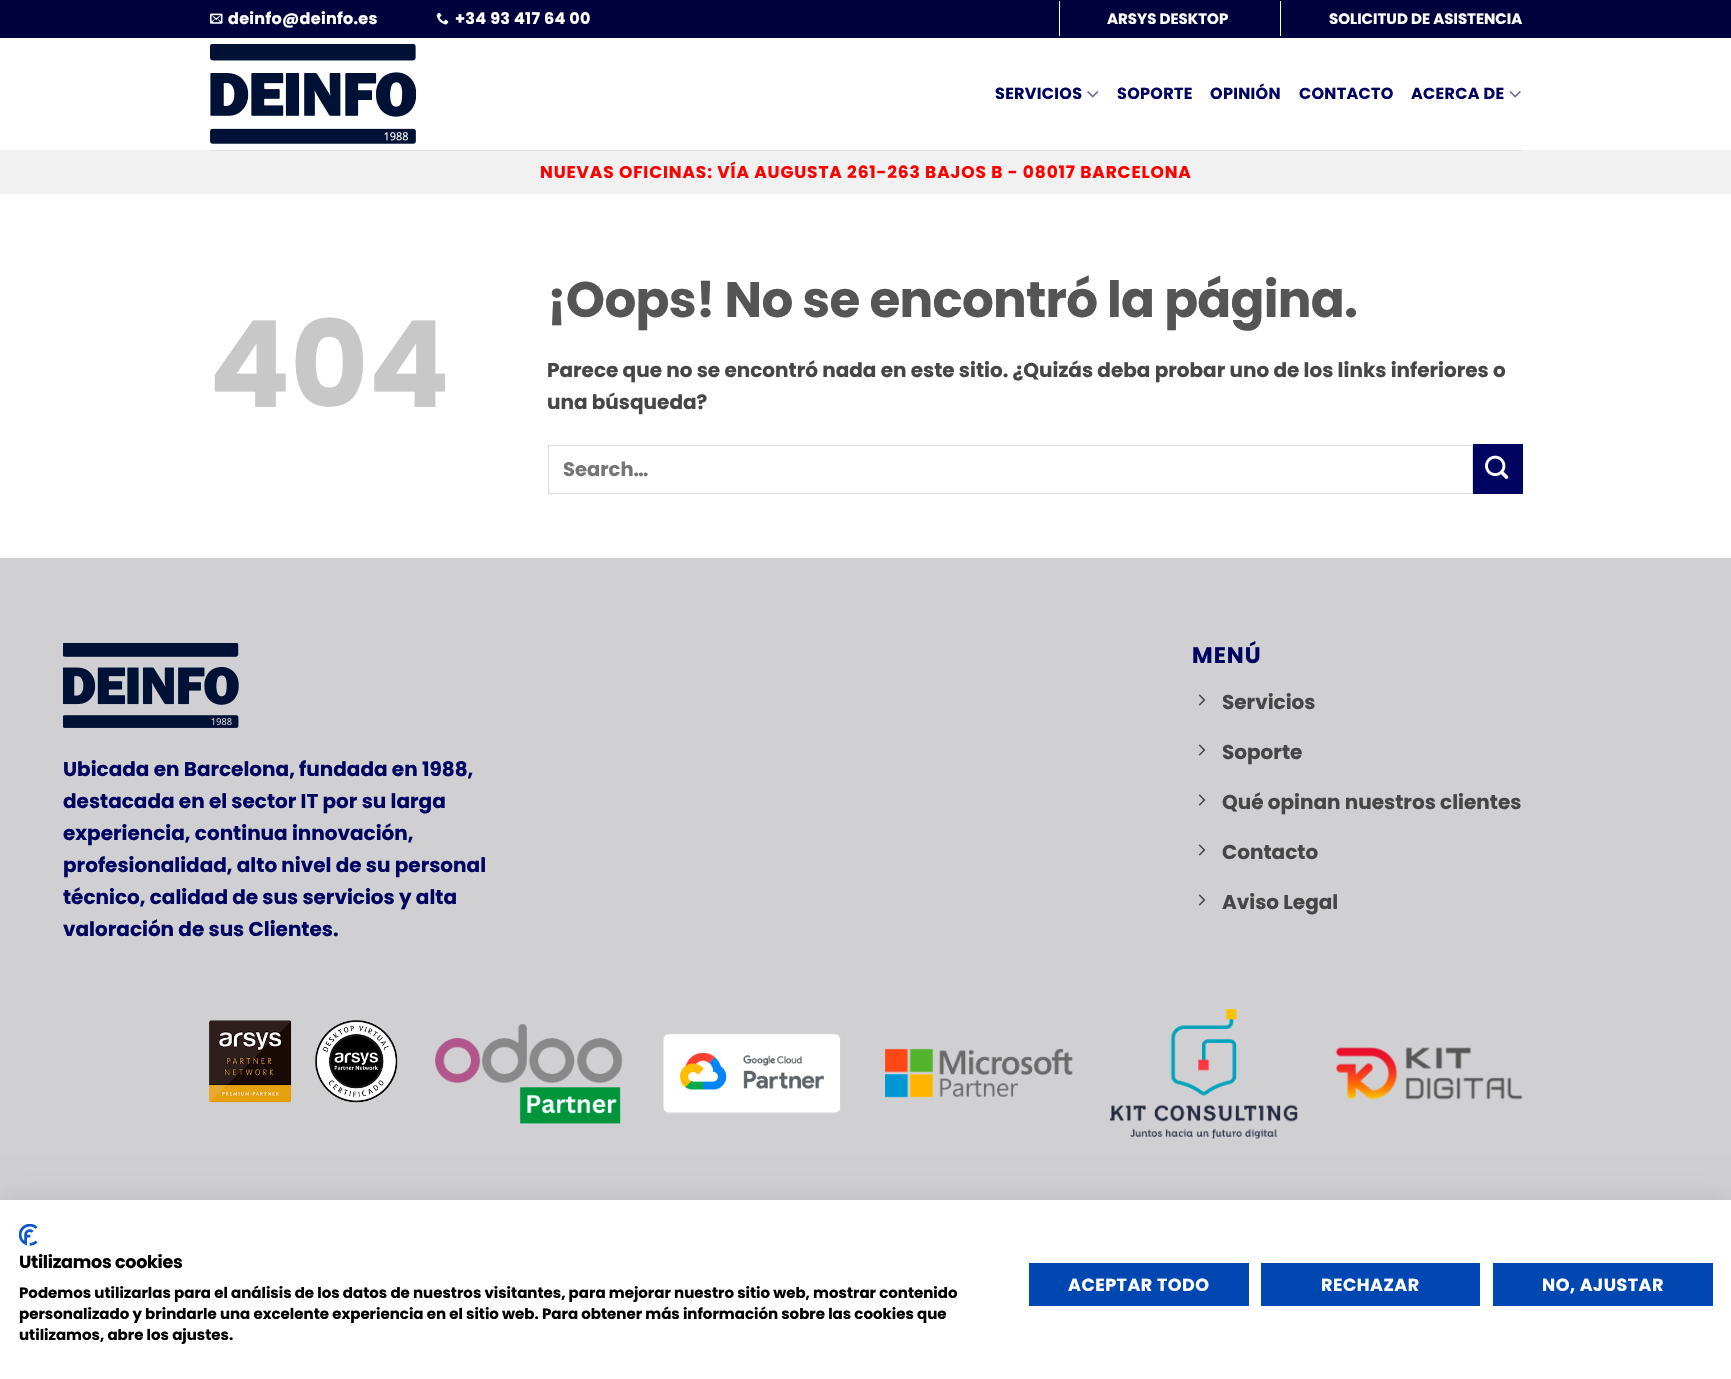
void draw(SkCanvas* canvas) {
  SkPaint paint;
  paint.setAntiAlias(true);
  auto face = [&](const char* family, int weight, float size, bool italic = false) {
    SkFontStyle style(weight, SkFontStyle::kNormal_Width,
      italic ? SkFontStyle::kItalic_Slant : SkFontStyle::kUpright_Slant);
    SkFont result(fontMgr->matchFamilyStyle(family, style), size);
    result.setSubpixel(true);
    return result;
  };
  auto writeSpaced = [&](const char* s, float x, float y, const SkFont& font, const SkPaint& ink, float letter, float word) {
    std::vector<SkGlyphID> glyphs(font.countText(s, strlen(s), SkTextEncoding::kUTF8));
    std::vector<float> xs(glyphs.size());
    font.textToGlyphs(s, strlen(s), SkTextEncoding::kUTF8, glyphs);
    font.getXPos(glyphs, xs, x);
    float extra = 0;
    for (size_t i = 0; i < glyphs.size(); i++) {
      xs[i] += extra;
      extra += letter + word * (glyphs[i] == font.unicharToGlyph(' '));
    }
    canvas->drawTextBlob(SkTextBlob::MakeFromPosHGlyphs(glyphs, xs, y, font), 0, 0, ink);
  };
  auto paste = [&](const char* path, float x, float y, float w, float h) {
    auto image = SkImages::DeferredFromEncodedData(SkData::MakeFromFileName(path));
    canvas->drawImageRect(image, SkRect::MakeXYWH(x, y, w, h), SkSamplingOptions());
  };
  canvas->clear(0xffffffff);
  paint.setColor(0xff00013d);
  canvas->drawRect(SkRect::MakeXYWH(0, 0, 1731, 38), paint);
  paste("img/1.png", 210, 13, 13, 11);
  paste("img/2.png", 436, 12, 13, 13);
  paint.setColor(0xffffffff);
  canvas->drawRect(SkRect::MakeXYWH(1059, 1, 1, 35), paint);
  canvas->drawRect(SkRect::MakeXYWH(1280, 1, 1, 35), paint);
  paste("img/3.png", 210, 44, 206, 100);
  paste("img/4.png", 1087, 91, 12, 7);
  paste("img/5.png", 1509, 91, 12, 7);
  paint.setColor(0xfff1f1f1);
  canvas->drawRect(SkRect::MakeXYWH(0, 150, 1731, 44), paint);
  paint.setColor(0xffe0e0e0);
  canvas->drawRect(SkRect::MakeXYWH(210, 150, 1313, 1), paint);
  paint.setStroke(true);
  paint.setStrokeWidth(1);
  paint.setColor(0xffdddddd);
  canvas->drawRect(SkRect::MakeXYWH(548.5f, 445.5f, 924, 48), paint);
  paint.setStroke(false);
  paint.setColor(0xff000360);
  canvas->drawRect(SkRect::MakeXYWH(1473.5f, 444.5f, 49, 49), paint);
  paint.setStroke(true);
  paint.setColor(0xff00035b);
  canvas->drawRect(SkRect::MakeXYWH(1473.5f, 444.5f, 49, 49), paint);
  paste("img/6.png", 1485, 455, 24, 24);
  paint.setStroke(false);
  paint.setColor(0xffd0d0d3);
  canvas->drawRect(SkRect::MakeXYWH(0, 558, 1731, 642), paint);
  paste("img/7.png", 63, 643, 176, 85);
  paste("img/8.png", 1198, 694, 8, 12);
  paste("img/8.png", 1198, 744, 8, 12);
  paste("img/8.png", 1198, 794, 8, 12);
  paste("img/8.png", 1198, 844, 8, 12);
  paste("img/8.png", 1198, 894, 8, 12);
  paste("img/9.png", 209, 1020, 83, 83);
  paste("img/10.png", 315, 1020, 83, 83);
  paste("img/11.png", 435, 1024, 188, 100);
  paste("img/12.png", 663, 1033, 178, 81);
  paste("img/13.png", 885, 1048, 188, 50);
  paste("img/14.png", 1110, 1008, 188, 131);
  paste("img/15.png", 1335, 1047, 188, 53);
  paint.setColor(0x1a000000);
  paint.setMaskFilter(SkMaskFilter::MakeBlur(kNormal_SkBlurStyle, 15));
  canvas->drawRect(SkRect::MakeXYWH(0, 1200, 1731, 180), paint);
  paint.setMaskFilter(nullptr);
  paint.setColor(0xffffffff);
  canvas->drawRect(SkRect::MakeXYWH(0, 1200, 1731, 179), paint);
  paste("img/16.png", 19, 1224, 19, 22);
  {
    const struct { float x, y, w, h; SkColor color; } items[] = {
      {1029, 1263, 220, 43, 0xff0047b2},
      {1261, 1263, 219, 43, 0xff0047b2},
      {1493, 1263, 220, 43, 0xff0047b2},
    };
    for (auto [x, y, w, h, color] : items) {
      paint.setColor(color);
      canvas->drawRect(SkRect::MakeXYWH(x, y, w, h), paint);
    }
  }
  auto f0 = face("Poppins", 700, 16);
  paint.setColor(0xffffffff);
  writeSpaced("deinfo@deinfo.es", 228, 24, f0, paint, 0.3f, 0);
  writeSpaced("+34 93 417 64 00", 455, 24, f0, paint, 0.3f, 0);
  auto f1 = face("Poppins", 700, 15);
  canvas->drawString("ARSYS DESKTOP", 1107, 24, f1, paint);
  canvas->drawString("SOLICITUD DE ASISTENCIA", 1329, 24, f1, paint);
  paint.setColor(0xff000360);
  {
    const struct { const char* s; float x, y; } items[] = {
      {"SERVICIOS", 995, 99},
      {"SOPORTE", 1117, 99},
      {"OPINIÓN", 1210, 99},
      {"CONTACTO", 1299, 99},
      {"ACERCA DE", 1411, 99},
    };
    for (auto [s, x, y] : items) {
      writeSpaced(s, x, y, f0, paint, 0.3f, 0);
    }
  }
  auto f2 = face("Poppins", 700, 17);
  paint.setColor(0xffff0000);
  writeSpaced("NUEVAS OFICINAS: VÍA AUGUSTA 261-263 BAJOS B - 08017 BARCELONA", 540, 178, f2, paint, 0.85f, 0);
  auto f3 = face("Poppins", 700, 120);
  paint.setColor(0xffc8c8c8);
  canvas->drawString("404", 209, 407, f3, paint);
  auto f4 = face("Poppins", 700, 50);
  paint.setColor(0xff555555);
  writeSpaced("¡Oops! No se encontró la página.", 547, 317, f4, paint, -0.75f, 0);
  auto f5 = face("Poppins", 700, 20);
  paint.setColor(0xff464646);
  canvas->drawString("Parece que no se encontró nada en este sitio. ¿Quizás deba probar uno de los links inferiores o", 547, 377, f5, paint);
  canvas->drawString("una búsqueda?", 547, 409, f5, paint);
  auto f6 = face("Poppins", 700, 19.5f);
  paint.setColor(0xff757575);
  canvas->drawString("Search…", 563, 476, f6, paint);
  paint.setColor(0xff000360);
  {
    const struct { const char* s; float x, y; } items[] = {
      {"Ubicada en Barcelona, fundada en 1988,", 63, 776},
      {"destacada en el sector IT por su larga", 63, 808},
      {"experiencia, continua innovación,", 63, 840},
      {"profesionalidad, alto nivel de su personal", 63, 872},
      {"técnico, calidad de sus servicios y alta", 63, 904},
      {"valoración de sus Clientes.", 63, 936},
    };
    for (auto [s, x, y] : items) {
      canvas->drawString(s, x, y, f5, paint);
    }
  }
  auto f7 = face("Poppins", 700, 22.5f);
  writeSpaced("MENÚ", 1192, 663, f7, paint, 1, 0);
  paint.setColor(0xff464646);
  {
    const struct { const char* s; float x, y; } items[] = {
      {"Servicios", 1222, 709},
      {"Soporte", 1222, 759},
      {"Qué opinan nuestros clientes", 1222, 809},
      {"Contacto", 1222, 859},
      {"Aviso Legal", 1222, 909},
    };
    for (auto [s, x, y] : items) {
      canvas->drawString(s, x, y, f5, paint);
    }
  }
  auto f8 = face("Poppins", 700, 17.5f);
  paint.setColor(0xff000000);
  writeSpaced("Utilizamos cookies", 19, 1268, f8, paint, -0.25f, 0);
  {
    const struct { const char* s; float x, y; } items[] = {
      {"Podemos utilizarlas para el análisis de los datos de nuestros visitantes, para mejorar nuestro sitio web, mostrar contenido", 19, 1298},
      {"personalizado y brindarle una excelente experiencia en el sitio web. Para obtener más información sobre las cookies que", 19, 1319},
      {"utilizamos, abre los ajustes.", 19, 1340},
    };
    for (auto [s, x, y] : items) {
      canvas->drawString(s, x, y, f1, paint);
    }
  }
  paint.setColor(0xffffffff);
  {
    const struct { const char* s; float x, y; } items[] = {
      {"ACEPTAR TODO", 1068, 1291},
      {"RECHAZAR", 1321, 1291},
      {"NO, AJUSTAR", 1542, 1291},
    };
    for (auto [s, x, y] : items) {
      writeSpaced(s, x, y, f8, paint, 0.5f, 0);
    }
  }
}
